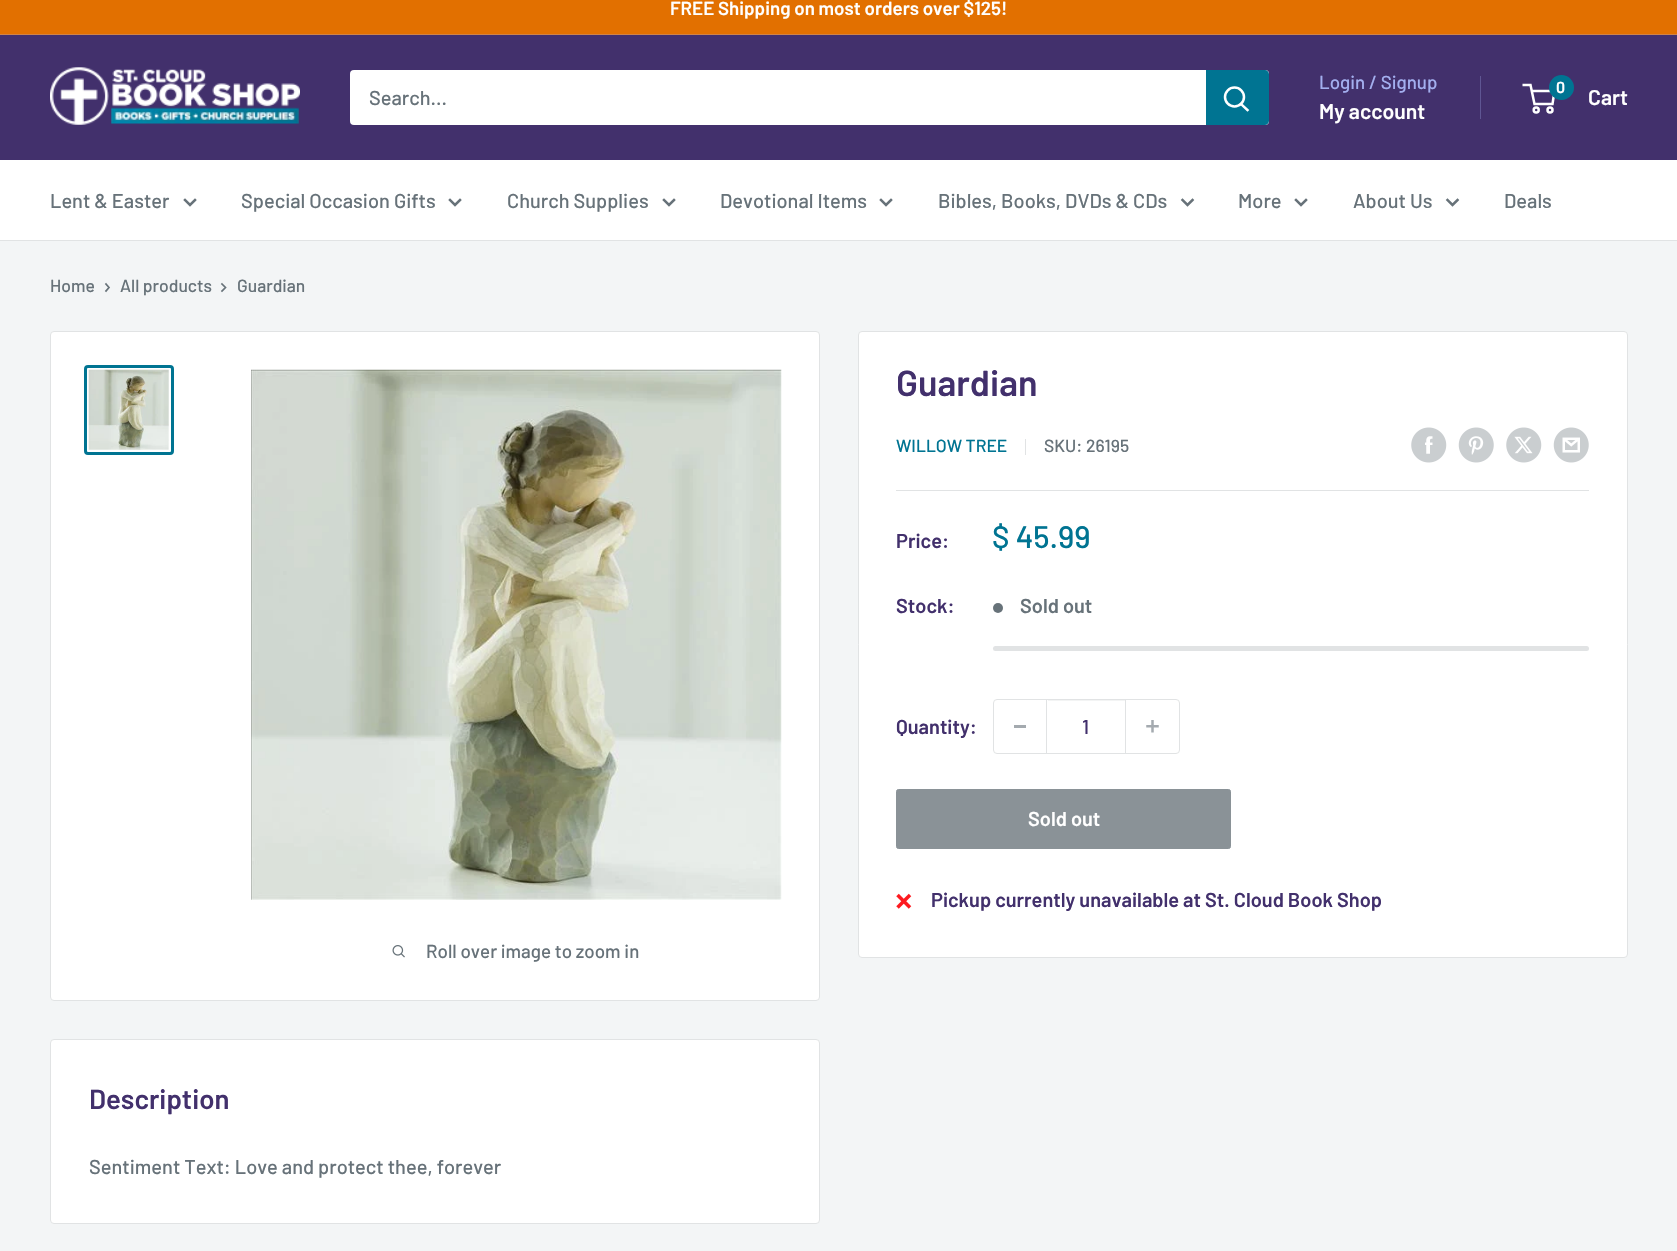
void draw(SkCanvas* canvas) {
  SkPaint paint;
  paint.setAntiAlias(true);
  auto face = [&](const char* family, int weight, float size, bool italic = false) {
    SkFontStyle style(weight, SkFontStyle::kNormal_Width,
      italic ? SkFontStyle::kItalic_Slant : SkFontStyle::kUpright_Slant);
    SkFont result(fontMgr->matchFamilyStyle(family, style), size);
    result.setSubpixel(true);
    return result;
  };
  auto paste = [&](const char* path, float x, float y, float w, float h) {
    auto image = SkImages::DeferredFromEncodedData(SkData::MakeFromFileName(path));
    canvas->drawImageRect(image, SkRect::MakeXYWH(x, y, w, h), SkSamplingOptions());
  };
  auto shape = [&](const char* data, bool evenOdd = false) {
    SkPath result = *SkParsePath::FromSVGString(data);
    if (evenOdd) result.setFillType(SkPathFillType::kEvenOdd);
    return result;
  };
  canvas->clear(0xfff3f5f6);
  {
    const struct { float x, y, w, h; SkColor color; } items[] = {
      {0, 0, 1677, 34, 0xffe27000},
      {0, 34, 1677, 1, 0xffcf8348},
      {0, 35, 1677, 125, 0xff42306c},
    };
    for (auto [x, y, w, h, color] : items) {
      paint.setColor(color);
      canvas->drawRect(SkRect::MakeXYWH(x, y, w, h), paint);
    }
  }
  paste("img/1.png", 50, 67, 250, 58);
  paint.setColor(0xffffffff);
  canvas->drawRoundRect(SkRect::MakeXYWH(350, 70, 919, 55), 4, 4, paint);
  paint.setColor(0xff007492);
  canvas->drawPath(shape("M1206 70H1265C1267 70 1269 72 1269 74V121C1269 123 1267 125 1265 125H1206Z"), paint);
  paint.setStroke(true);
  paint.setStrokeWidth(2.5f);
  paint.setStrokeCap(SkPaint::kSquare_Cap);
  paint.setColor(0xffffffff);
  canvas->drawPath(shape("M1247.5 110L1241 104"), paint);
  paint.setStrokeCap(SkPaint::kButt_Cap);
  canvas->drawCircle(1234.5f, 97, 9.5f, paint);
  paint.setStroke(false);
  paint.setColor(0xff5f5693);
  canvas->drawRect(SkRect::MakeXYWH(1480, 76, 1, 43), paint);
  paint.setStroke(true);
  paint.setColor(0xffffffff);
  canvas->drawCircle(1536.2f, 110, 2.5f, paint);
  canvas->drawCircle(1550, 110, 2.5f, paint);
  canvas->drawPath(shape("M1531.5 91H1554.5L1552.5 104H1534.5L1530.5 85H1522.5"), paint);
  paint.setStroke(false);
  paint.setColor(0xff007492);
  canvas->drawCircle(1561.5f, 87.5f, 12.5f, paint);
  paint.setColor(0xffffffff);
  canvas->drawRect(SkRect::MakeXYWH(0, 160, 1677, 80), paint);
  paint.setColor(0xffe1e3e4);
  canvas->drawRect(SkRect::MakeXYWH(0, 240, 1677, 1), paint);
  paint.setStroke(true);
  paint.setStrokeCap(SkPaint::kSquare_Cap);
  paint.setColor(0xff677279);
  canvas->drawPath(shape("M195 200L190 205L185 200"), paint);
  canvas->drawPath(shape("M460 200L455 205L450 200"), paint);
  canvas->drawPath(shape("M674 200L669 205L664 200"), paint);
  canvas->drawPath(shape("M891 200L886 205L881 200"), paint);
  canvas->drawPath(shape("M1192.5 200L1187.5 205L1182.5 200"), paint);
  canvas->drawPath(shape("M1306 200L1301 205L1296 200"), paint);
  canvas->drawPath(shape("M1457.5 200L1452.5 205L1447.5 200"), paint);
  paint.setStrokeWidth(1.7f);
  canvas->drawPath(shape("M106 284L109 287.5L106 291"), paint);
  canvas->drawPath(shape("M222 284L225.5 287.5L222 291"), paint);
  paint.setStroke(false);
  paint.setColor(0xffffffff);
  canvas->drawRoundRect(SkRect::MakeXYWH(858.5f, 331.5f, 769, 626), 3.5f, 3.5f, paint);
  paint.setStroke(true);
  paint.setStrokeWidth(1);
  paint.setStrokeCap(SkPaint::kButt_Cap);
  paint.setColor(0xffe1e3e4);
  canvas->drawRoundRect(SkRect::MakeXYWH(858.5f, 331.5f, 769, 626), 3.5f, 3.5f, paint);
  paint.setStroke(false);
  canvas->drawRect(SkRect::MakeXYWH(1025, 439, 1, 16), paint);
  paste("img/2.png", 1411, 427, 36, 36);
  paste("img/3.png", 1458, 427, 36, 36);
  paste("img/4.png", 1506, 427, 36, 36);
  paste("img/5.png", 1553, 427, 36, 36);
  canvas->drawRect(SkRect::MakeXYWH(896, 490, 693, 1), paint);
  paint.setColor(0xff677279);
  canvas->drawCircle(998, 608, 5, paint);
  paint.setColor(0xffe1e3e4);
  canvas->drawRoundRect(SkRect::MakeXYWH(993, 646, 596, 5), 2.5f, 2.5f, paint);
  paint.setStroke(true);
  canvas->drawRoundRect(SkRect::MakeXYWH(993.5f, 699.5f, 186, 54), 3.5f, 3.5f, paint);
  paint.setStroke(false);
  {
    const struct { float x, y, w, h; SkColor color; } items[] = {
      {1014, 725, 12, 3, 0xffa4aaaf},
      {1048, 700, 77, 1, 0xfff3f4f4},
      {1125, 700, 1, 53, 0xffe1e3e4},
      {1046, 700, 1, 53, 0xffe1e3e4},
    };
    for (auto [x, y, w, h, color] : items) {
      paint.setColor(color);
      canvas->drawRect(SkRect::MakeXYWH(x, y, w, h), paint);
    }
  }
  paste("img/6.png", 1146, 720, 13, 13);
  paint.setColor(0xff8a9297);
  canvas->drawRoundRect(SkRect::MakeXYWH(896.5f, 789.5f, 334, 59), 2, 2, paint);
  paint.setStroke(true);
  canvas->drawRoundRect(SkRect::MakeXYWH(896.5f, 789.5f, 334, 59), 2, 2, paint);
  paste("img/7.png", 896, 893, 16, 16);
  paint.setStroke(false);
  paint.setColor(0xffffffff);
  canvas->drawRoundRect(SkRect::MakeXYWH(50.5f, 331.5f, 769, 669), 3.5f, 3.5f, paint);
  paint.setStroke(true);
  paint.setColor(0xffe1e3e4);
  canvas->drawRoundRect(SkRect::MakeXYWH(50.5f, 331.5f, 769, 669), 3.5f, 3.5f, paint);
  paint.setStrokeWidth(3);
  paint.setColor(0xff007492);
  canvas->drawRoundRect(SkRect::MakeXYWH(85.5f, 366.5f, 87, 87), 2.5f, 2.5f, paint);
  paste("img/8.png", 88, 369, 81, 81);
  paste("img/9.png", 251, 369, 531, 531);
  paste("img/10.png", 392, 945, 13, 13);
  paint.setStroke(false);
  paint.setColor(0xffffffff);
  canvas->drawRoundRect(SkRect::MakeXYWH(50.5f, 1039.5f, 769, 184), 3.5f, 3.5f, paint);
  paint.setStroke(true);
  paint.setStrokeWidth(1);
  paint.setColor(0xffe1e3e4);
  canvas->drawRoundRect(SkRect::MakeXYWH(50.5f, 1039.5f, 769, 184), 3.5f, 3.5f, paint);
  auto f0 = face("Barlow", 600, 18.75f);
  paint.setStroke(false);
  paint.setColor(0xffffffff);
  canvas->drawString("FREE Shipping on most orders over $125!", 670, 15, f0, paint);
  auto f1 = face("Barlow", 500, 20);
  paint.setColor(0xff677279);
  canvas->drawString("Search...", 369, 105, f1, paint);
  auto f2 = face("Barlow", 500, 18.75f);
  paint.setColor(0xffa3afef);
  canvas->drawString("Login / Signup", 1319, 89, f2, paint);
  auto f3 = face("Barlow", 600, 21.25f);
  paint.setColor(0xffffffff);
  canvas->drawString("My account", 1319, 119, f3, paint);
  auto f4 = face("Barlow", 600, 16);
  canvas->drawString("0", 1556, 93, f4, paint);
  canvas->drawString("Cart", 1588, 105, f3, paint);
  paint.setColor(0xff677279);
  {
    const struct { const char* s; float x, y; } items[] = {
      {"Lent & Easter", 50, 208},
      {"Special Occasion Gifts", 241, 208},
      {"Church Supplies", 507, 208},
      {"Devotional Items", 720, 208},
      {"Bibles, Books, DVDs & CDs", 938, 208},
      {"More", 1238, 208},
      {"About Us", 1353, 208},
      {"Deals", 1504, 208},
    };
    for (auto [s, x, y] : items) {
      canvas->drawString(s, x, y, f1, paint);
    }
  }
  auto f5 = face("Barlow", 500, 17.5f);
  {
    const struct { const char* s; float x, y; } items[] = {
      {"Home", 50, 292},
      {"All products", 120, 292},
      {"Guardian", 237, 292},
    };
    for (auto [s, x, y] : items) {
      canvas->drawString(s, x, y, f5, paint);
    }
  }
  auto f6 = face("Barlow", 600, 36);
  paint.setColor(0xff42306c);
  canvas->drawString("Guardian", 896, 396, f6, paint);
  paint.setColor(0xff007492);
  canvas->drawString("WILLOW TREE", 896, 452, f5, paint);
  paint.setColor(0xff677279);
  canvas->drawString("SKU: 26195", 1044, 452, f5, paint);
  auto f7 = face("Barlow", 600, 20);
  paint.setColor(0xff42306c);
  canvas->drawString("Price:", 896, 548, f7, paint);
  auto f8 = face("Barlow", 500, 31);
  paint.setColor(0xff007492);
  canvas->drawString("$ 45.99", 992, 548, f8, paint);
  paint.setColor(0xff42306c);
  canvas->drawString("Stock:", 896, 613, f7, paint);
  paint.setColor(0xff677279);
  canvas->drawString("Sold out", 1020, 613, f7, paint);
  paint.setColor(0xff42306c);
  canvas->drawString("Quantity:", 896, 734, f7, paint);
  canvas->drawString("1", 1082, 734, f1, paint);
  paint.setColor(0xffffffff);
  canvas->drawString("Sold out", 1028, 826, f7, paint);
  paint.setColor(0xff42306c);
  canvas->drawString("Pickup currently unavailable at St. Cloud Book Shop", 931, 907, f7, paint);
  paint.setColor(0xff677279);
  canvas->drawString("Roll over image to zoom in", 426, 958, f2, paint);
  auto f9 = face("Barlow", 600, 27.5f);
  paint.setColor(0xff42306c);
  canvas->drawString("Description", 89, 1109, f9, paint);
  paint.setColor(0xff677279);
  canvas->drawString("Sentiment Text: Love and protect thee, forever", 89, 1174, f1, paint);
}
